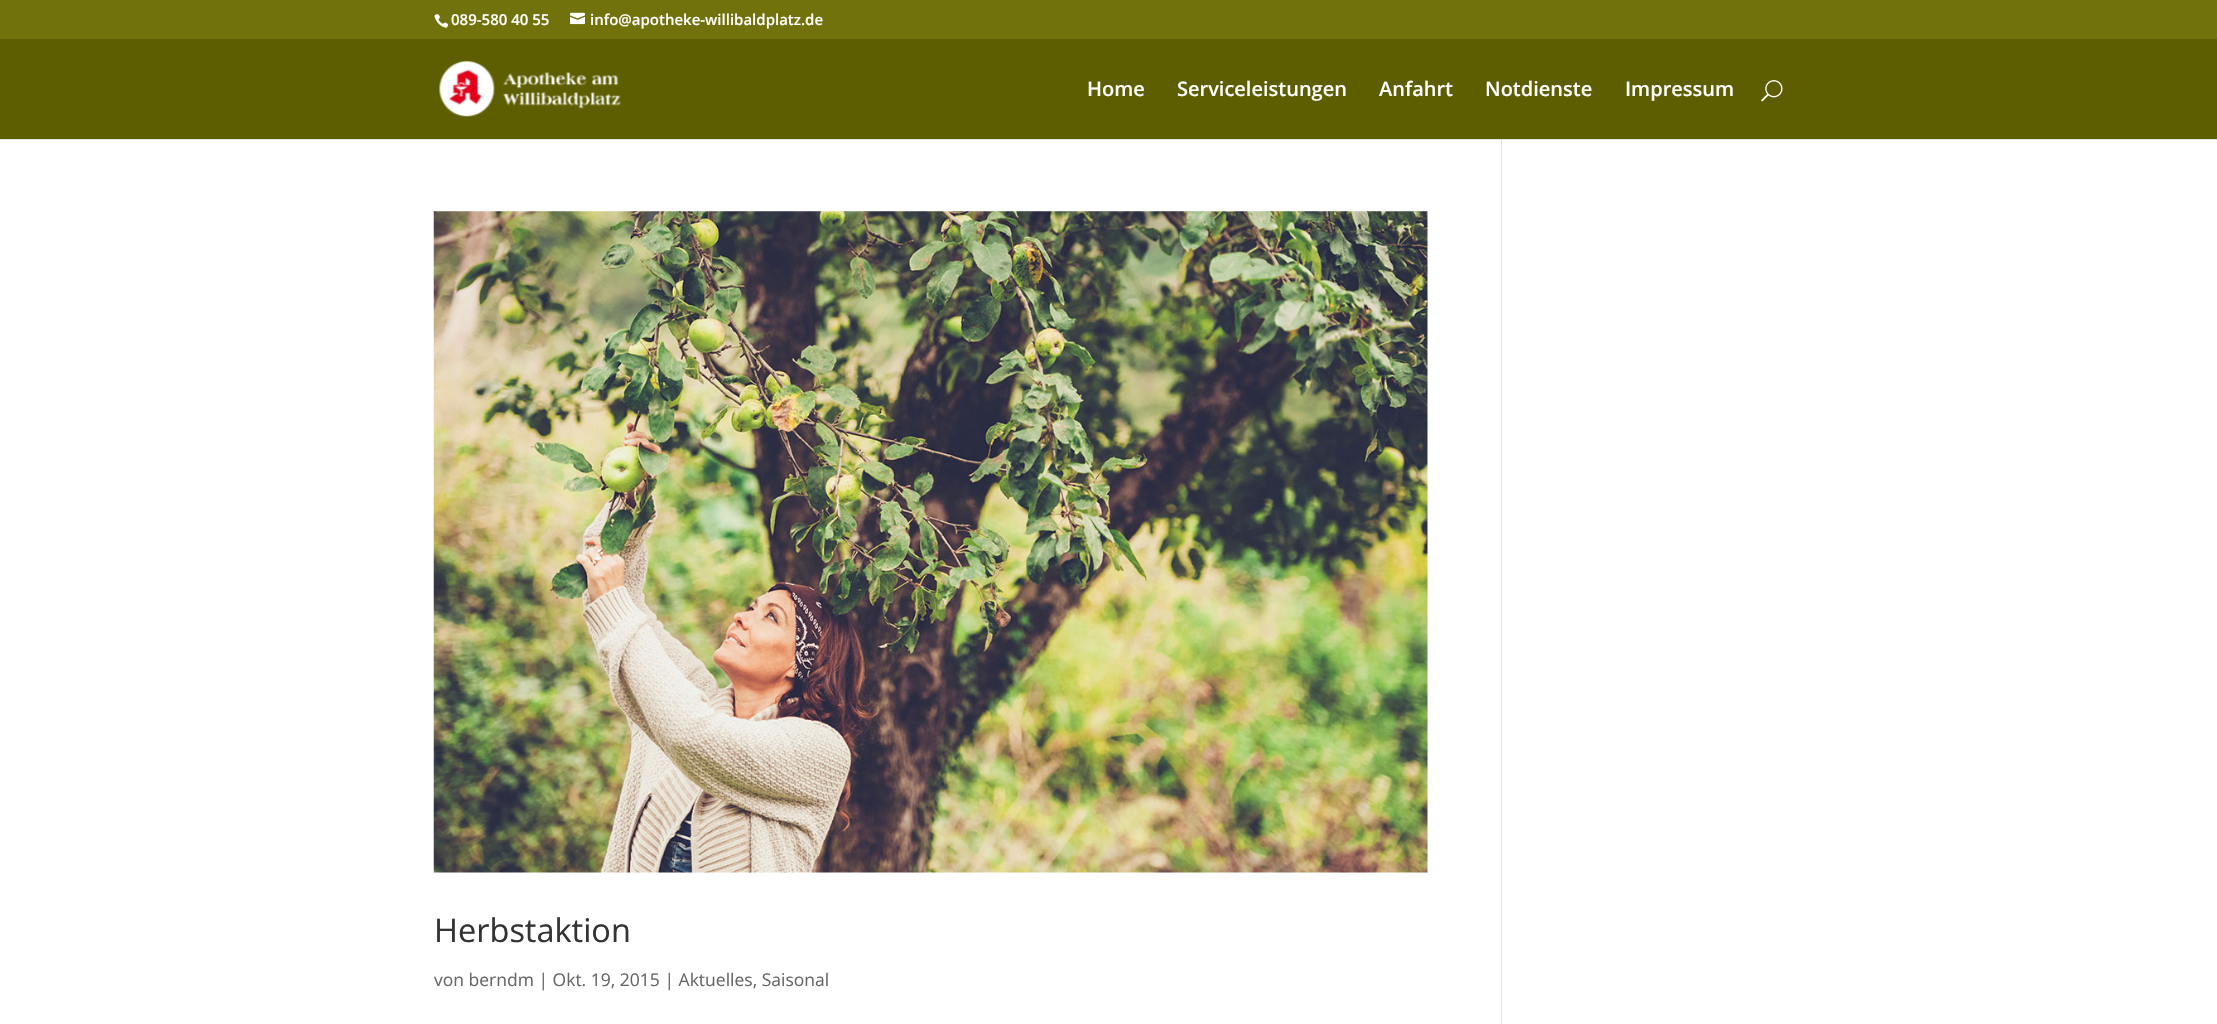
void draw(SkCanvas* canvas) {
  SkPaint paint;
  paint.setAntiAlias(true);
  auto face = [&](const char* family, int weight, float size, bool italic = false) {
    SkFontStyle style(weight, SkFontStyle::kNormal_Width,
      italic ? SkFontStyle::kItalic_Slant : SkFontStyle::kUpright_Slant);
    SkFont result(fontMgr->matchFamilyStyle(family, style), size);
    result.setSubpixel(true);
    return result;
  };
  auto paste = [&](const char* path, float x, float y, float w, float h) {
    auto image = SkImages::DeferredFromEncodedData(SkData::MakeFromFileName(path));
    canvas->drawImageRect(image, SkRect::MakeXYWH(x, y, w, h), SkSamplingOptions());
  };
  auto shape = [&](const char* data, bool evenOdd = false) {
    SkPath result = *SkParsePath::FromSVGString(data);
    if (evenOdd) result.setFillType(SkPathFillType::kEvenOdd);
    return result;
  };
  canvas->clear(0xffffffff);
  paint.setColor(0xff72720c);
  canvas->drawRect(SkRect::MakeXYWH(0, 0, 2217, 39), paint);
  paste("img/1.png", 434, 14, 15, 14);
  paste("img/2.png", 570, 12, 15, 13);
  paint.setColor(0xffe2e2e2);
  canvas->drawRect(SkRect::MakeXYWH(1501, 139, 1, 885), paint);
  paint.setColor(0x1a000000);
  canvas->drawPath(shape("M0 139V140H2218V40V139Z"), paint);
  paint.setColor(0xff5d5d01);
  canvas->drawRect(SkRect::MakeXYWH(0, 39, 2217, 100), paint);
  paste("img/3.png", 439, 61, 182, 56);
  paste("img/4.png", 1761, 80, 22, 22);
  paste("img/5.png", 433, 211, 995, 662);
  auto f0 = face("Open Sans", 600, 15);
  paint.setColor(0xffffffff);
  canvas->drawString("089-580 40 55", 451, 25, f0, paint);
  canvas->drawString("info@apotheke-willibaldplatz.de", 590, 25, f0, paint);
  auto f1 = face("Open Sans", 600, 20);
  {
    const struct { const char* s; float x, y; } items[] = {
      {"Home", 1087, 96},
      {"Serviceleistungen", 1177, 96},
      {"Anfahrt", 1379, 96},
      {"Notdienste", 1485, 96},
      {"Impressum", 1625, 96},
    };
    for (auto [s, x, y] : items) {
      canvas->drawString(s, x, y, f1, paint);
    }
  }
  auto f2 = face("Open Sans", 400, 32.5f);
  paint.setColor(0xff333333);
  canvas->drawString("Herbstaktion", 434, 942, f2, paint);
  auto f3 = face("Open Sans", 400, 17.5f);
  paint.setColor(0xff666666);
  canvas->drawString("von berndm | Okt. 19, 2015 | Aktuelles, Saisonal", 434, 986, f3, paint);
}
